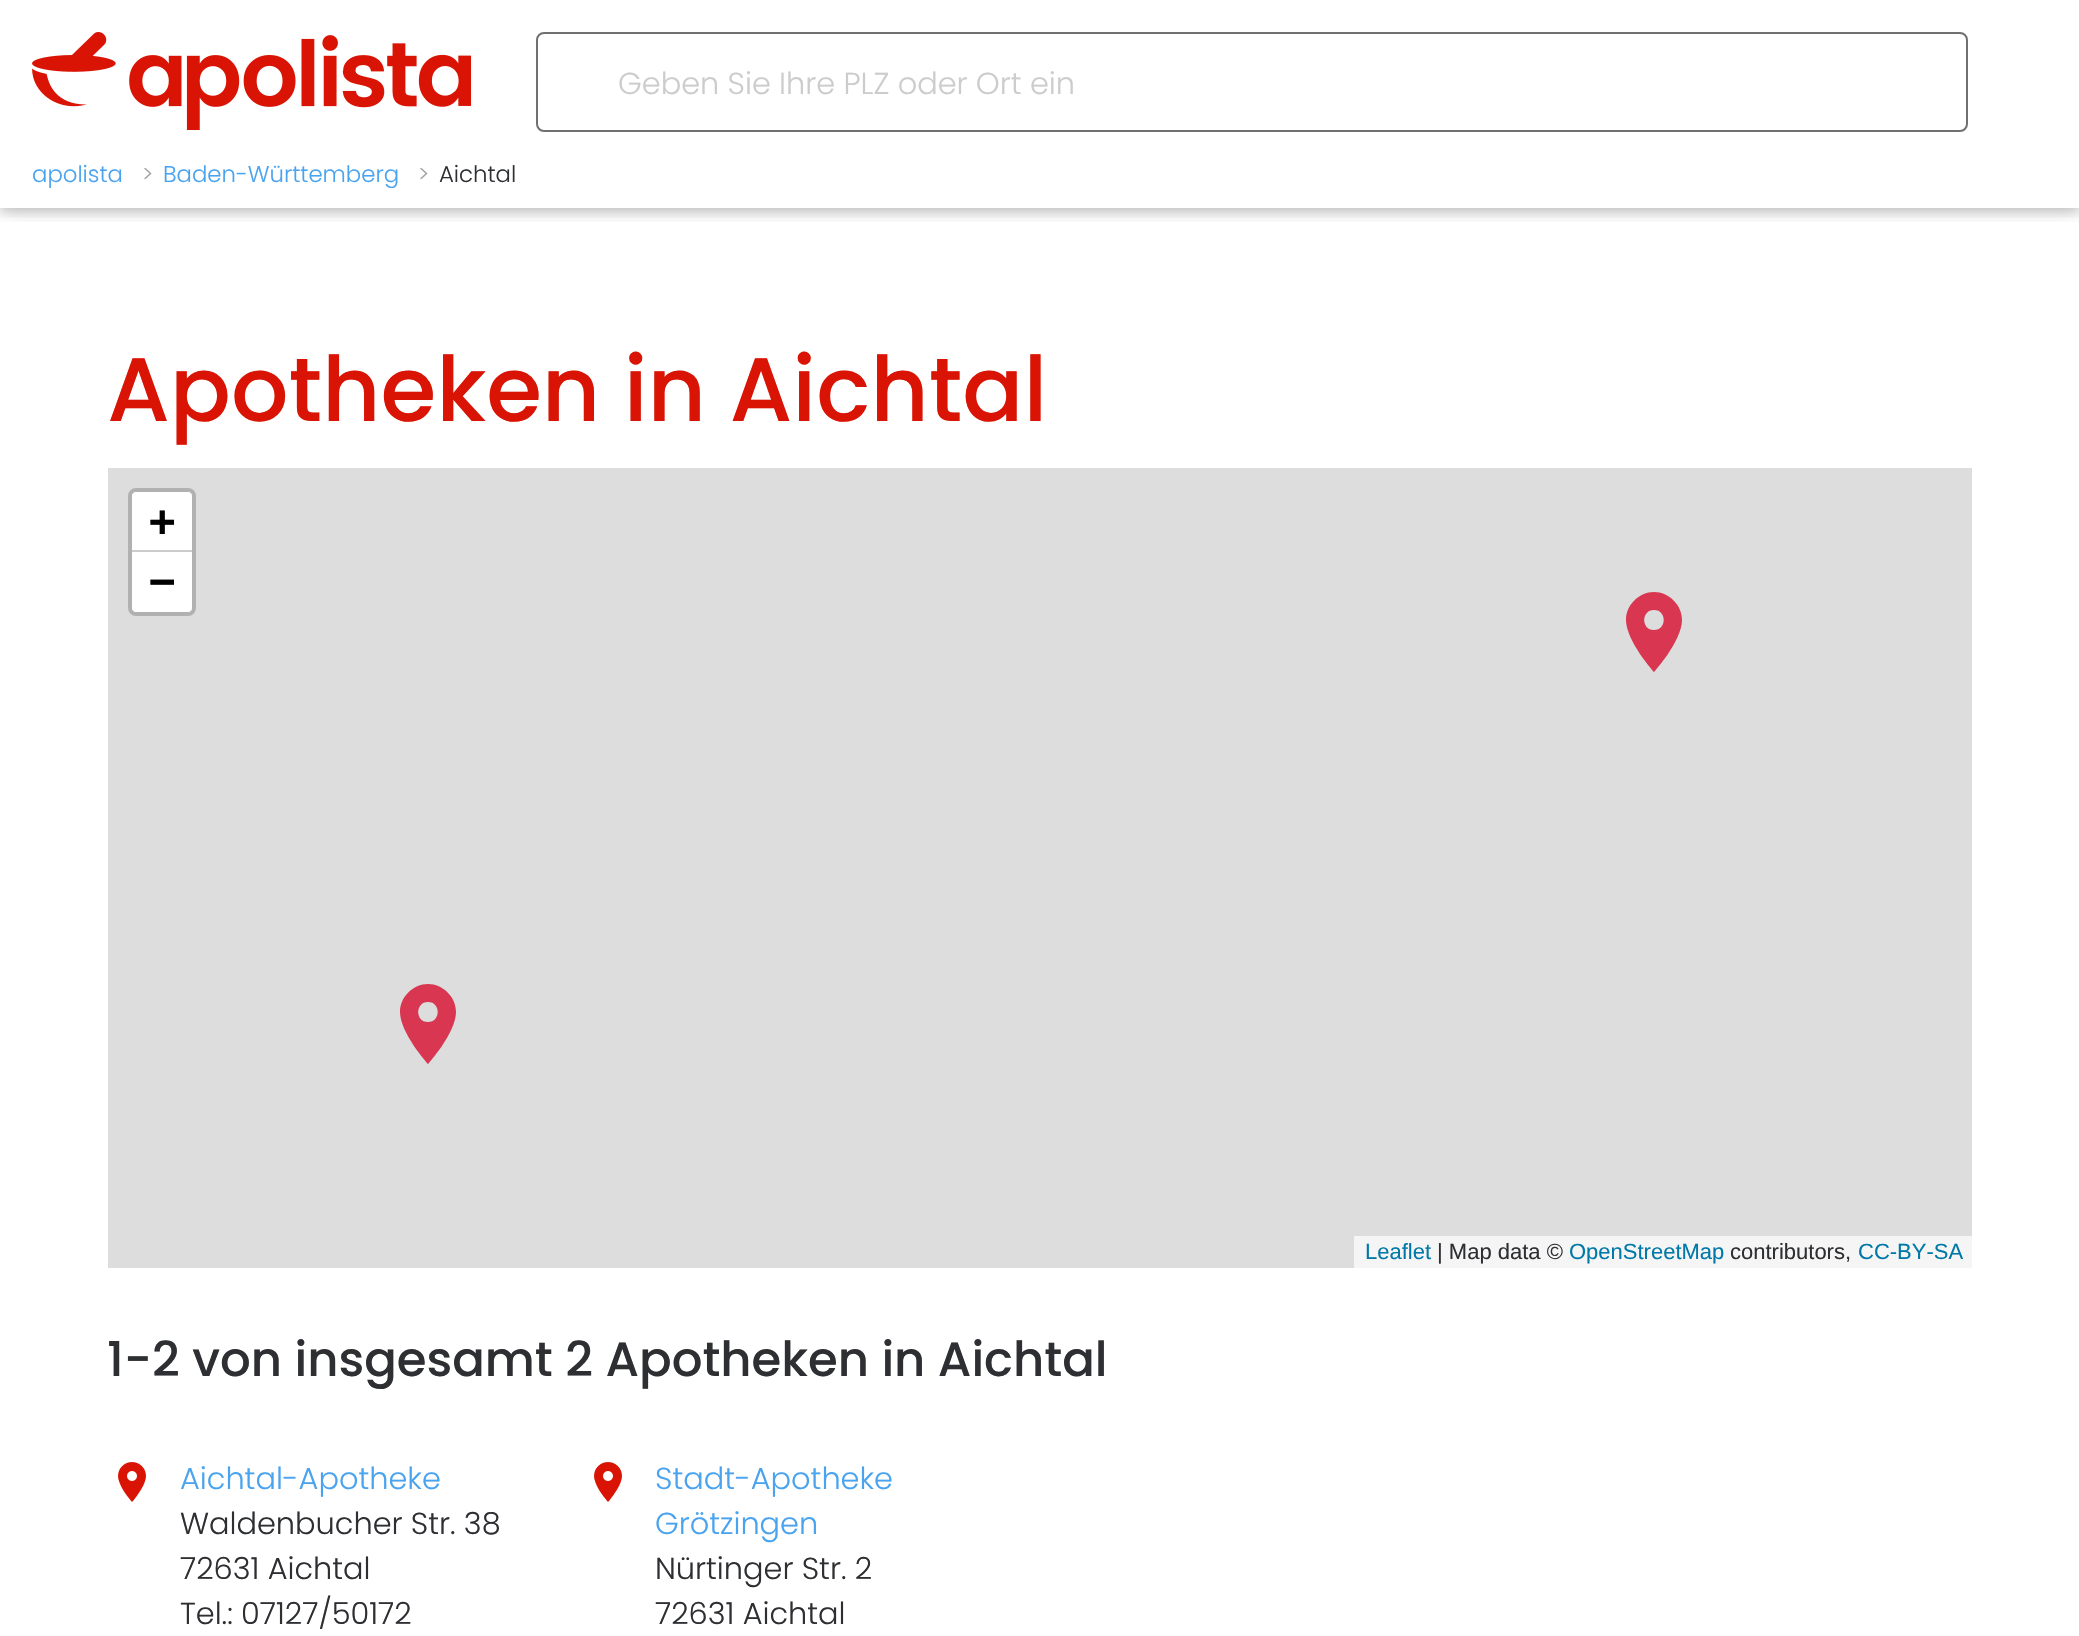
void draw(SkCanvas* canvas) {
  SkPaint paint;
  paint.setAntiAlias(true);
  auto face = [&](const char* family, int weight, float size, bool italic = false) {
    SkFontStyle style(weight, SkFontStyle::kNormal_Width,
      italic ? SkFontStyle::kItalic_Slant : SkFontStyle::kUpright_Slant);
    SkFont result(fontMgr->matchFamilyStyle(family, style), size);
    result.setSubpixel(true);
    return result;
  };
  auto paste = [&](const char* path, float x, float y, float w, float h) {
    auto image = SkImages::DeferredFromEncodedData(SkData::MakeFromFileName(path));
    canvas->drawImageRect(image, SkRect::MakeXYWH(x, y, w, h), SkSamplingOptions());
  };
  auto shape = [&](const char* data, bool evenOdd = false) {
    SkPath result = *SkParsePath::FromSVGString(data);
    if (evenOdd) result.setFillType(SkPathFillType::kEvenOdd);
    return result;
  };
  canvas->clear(0xffffffff);
  canvas->save();
  canvas->clipRect(SkRect::MakeXYWH(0, 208, 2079, 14));
  paint.setColor(0x1f000000);
  paint.setMaskFilter(SkMaskFilter::MakeBlur(kNormal_SkBlurStyle, 10));
  canvas->drawRect(SkRect::MakeXYWH(0, 4, 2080, 208), paint);
  paint.setMaskFilter(nullptr);
  canvas->restore();
  canvas->save();
  canvas->clipRect(SkRect::MakeXYWH(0, 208, 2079, 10));
  paint.setColor(0x29000000);
  paint.setMaskFilter(SkMaskFilter::MakeBlur(kNormal_SkBlurStyle, 5));
  canvas->drawRect(SkRect::MakeXYWH(0, 4, 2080, 208), paint);
  paint.setMaskFilter(nullptr);
  canvas->restore();
  paste("img/1.png", 32, 32, 440, 98);
  paint.setStroke(true);
  paint.setStrokeWidth(2);
  paint.setColor(0xff707070);
  canvas->drawRoundRect(SkRect::MakeXYWH(537, 33, 1430, 98), 7, 7, paint);
  paint.setStroke(false);
  paint.setColor(0xffdddddd);
  canvas->drawRect(SkRect::MakeXYWH(108, 468, 1864, 800), paint);
  paint.setStroke(true);
  paint.setStrokeWidth(4);
  paint.setColor(0xffb1b1b1);
  canvas->drawRoundRect(SkRect::MakeXYWH(130, 490, 64, 124), 6, 6, paint);
  paint.setStroke(false);
  paint.setColor(0xffffffff);
  canvas->drawPath(shape("M136 492H188C190 492 192 494 192 496V552H132V496C132 494 134 492 136 492Z"), paint);
  paint.setColor(0xffcccccc);
  canvas->drawRect(SkRect::MakeXYWH(132, 550, 60, 2), paint);
  paint.setColor(0xffffffff);
  canvas->drawPath(shape("M132 552H192V608C192 610 190 612 188 612H136C134 612 132 610 132 608Z"), paint);
  paint.setColor(0xfff5f5f5);
  canvas->drawRect(SkRect::MakeXYWH(1354, 1236, 618, 32), paint);
  paint.setColor(0xffd83651);
  canvas->drawPath(shape("M1654 592C1639 592 1626 605 1626 620C1626 641 1654 672 1654 672C1654 672 1682 641 1682 620C1682 605 1669 592 1654 592ZM1654 630C1641 630 1641 610 1654 610C1667 610 1667 630 1654 630Z", true), paint);
  canvas->drawPath(shape("M428 984C413 984 400 997 400 1012C400 1033 428 1064 428 1064C428 1064 456 1033 456 1012C456 997 443 984 428 984ZM428 1022C415 1022 415 1002 428 1002C441 1002 441 1022 428 1022Z", true), paint);
  paste("img/2.png", 118, 1462, 28, 40);
  paste("img/2.png", 594, 1462, 28, 40);
  auto f0 = face("Poppins", 300, 32);
  paint.setColor(0xffcccccc);
  canvas->drawString("Geben Sie Ihre PLZ oder Ort ein", 618, 94, f0, paint);
  auto f1 = face("Poppins", 300, 24);
  paint.setColor(0xff49a3ee);
  canvas->drawString("apolista", 32, 182, f1, paint);
  paint.setColor(0xffa2a5a5);
  canvas->drawString(">", 142, 182, f1, paint);
  paint.setColor(0xff49a3ee);
  canvas->drawString("Baden-Württemberg", 163, 182, f1, paint);
  paint.setColor(0xffa2a5a5);
  canvas->drawString(">", 418, 182, f1, paint);
  paint.setColor(0xff2e2f32);
  canvas->drawString("Aichtal", 439, 182, f1, paint);
  auto f2 = face("Poppins", 500, 96);
  paint.setColor(0xffd91404);
  canvas->drawString("Apotheken in Aichtal", 107, 421, f2, paint);
  auto f3 = face("DejaVu Sans Mono", 700, 44);
  paint.setColor(0xff000000);
  canvas->drawString("+", 149, 536, f3, paint);
  canvas->drawString("−", 149, 596, f3, paint);
  auto f4 = face("Liberation Sans", 400, 22);
  paint.setColor(0xff0078a8);
  canvas->drawString("Leaflet", 1365, 1259, f4, paint);
  paint.setColor(0xff2e2f32);
  canvas->drawString("| Map data ©", 1437, 1259, f4, paint);
  paint.setColor(0xff0078a8);
  canvas->drawString("OpenStreetMap", 1569, 1259, f4, paint);
  paint.setColor(0xff2e2f32);
  canvas->drawString("contributors,", 1730, 1259, f4, paint);
  paint.setColor(0xff0078a8);
  canvas->drawString("CC-BY-SA", 1858, 1259, f4, paint);
  auto f5 = face("Poppins", 500, 51.25f);
  paint.setColor(0xff2e2f32);
  canvas->drawString("1-2 von insgesamt 2 Apotheken in Aichtal", 107, 1376, f5, paint);
  paint.setColor(0xff49a3ee);
  canvas->drawString("Aichtal-Apotheke", 180, 1489, f0, paint);
  paint.setColor(0xff2e2f32);
  {
    const struct { const char* s; float x, y; } items[] = {
      {"Waldenbucher Str. 38", 180, 1534},
      {"72631 Aichtal", 180, 1579},
      {"Tel.: 07127/50172", 180, 1624},
    };
    for (auto [s, x, y] : items) {
      canvas->drawString(s, x, y, f0, paint);
    }
  }
  paint.setColor(0xff49a3ee);
  canvas->drawString("Stadt-Apotheke", 655, 1489, f0, paint);
  canvas->drawString("Grötzingen", 655, 1534, f0, paint);
  paint.setColor(0xff2e2f32);
  canvas->drawString("Nürtinger Str. 2", 655, 1579, f0, paint);
  canvas->drawString("72631 Aichtal", 655, 1624, f0, paint);
}
